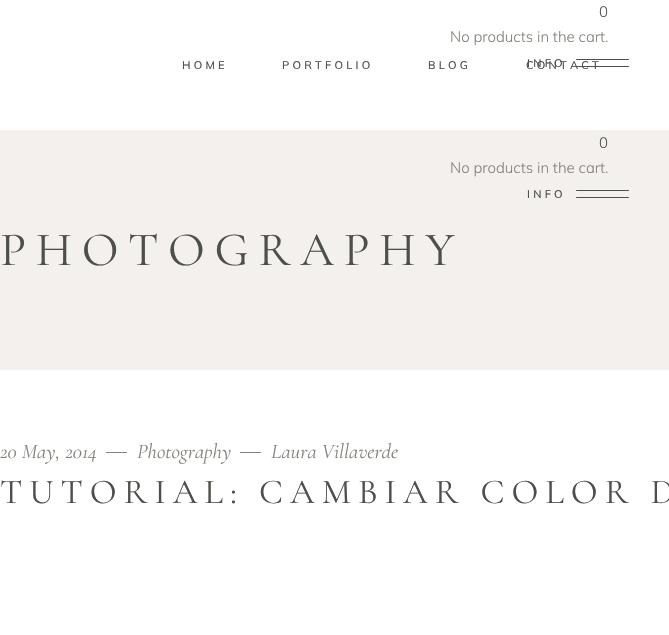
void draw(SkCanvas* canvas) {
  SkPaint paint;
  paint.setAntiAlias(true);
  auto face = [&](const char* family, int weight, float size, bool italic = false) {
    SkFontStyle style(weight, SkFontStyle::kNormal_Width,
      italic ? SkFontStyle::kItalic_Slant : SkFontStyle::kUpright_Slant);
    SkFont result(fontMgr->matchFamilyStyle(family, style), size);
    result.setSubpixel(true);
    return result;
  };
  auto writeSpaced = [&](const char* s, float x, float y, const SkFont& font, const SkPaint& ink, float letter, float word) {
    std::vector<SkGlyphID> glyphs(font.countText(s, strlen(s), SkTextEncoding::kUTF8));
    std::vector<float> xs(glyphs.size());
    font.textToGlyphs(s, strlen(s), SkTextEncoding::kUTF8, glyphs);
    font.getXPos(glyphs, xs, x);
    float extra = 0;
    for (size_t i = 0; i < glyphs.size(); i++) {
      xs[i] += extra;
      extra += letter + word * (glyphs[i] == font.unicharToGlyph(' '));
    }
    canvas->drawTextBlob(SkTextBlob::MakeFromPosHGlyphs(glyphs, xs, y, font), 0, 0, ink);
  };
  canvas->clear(0xffffffff);
  paint.setColor(0xff4d504a);
  canvas->drawRoundRect(SkRect::MakeXYWH(576, 59, 53, 1), 0.5f, 0.5f, paint);
  canvas->drawRoundRect(SkRect::MakeXYWH(576, 66, 53, 1), 0.5f, 0.5f, paint);
  paint.setColor(0xfff4f0ed);
  canvas->drawRect(SkRect::MakeXYWH(0, 130, 669, 240), paint);
  paint.setColor(0xff4d504a);
  canvas->drawRoundRect(SkRect::MakeXYWH(576, 190, 53, 1), 0.5f, 0.5f, paint);
  canvas->drawRoundRect(SkRect::MakeXYWH(576, 197, 53, 1), 0.5f, 0.5f, paint);
  paint.setColor(0xff84847c);
  canvas->drawRect(SkRect::MakeXYWH(106, 452, 21, 1), paint);
  canvas->drawRect(SkRect::MakeXYWH(240, 452, 21, 1), paint);
  auto f0 = face("Muli", 300, 15);
  paint.setColor(0xff4d504a);
  canvas->drawString("0", 599, 17, f0, paint);
  paint.setColor(0xff84847c);
  canvas->drawString("No products in the cart.", 450, 42, f0, paint);
  auto f1 = face("Muli", 500, 11);
  paint.setColor(0xff4d504a);
  {
    const struct { const char* s; float x, y; } items[] = {
      {"HOME", 182, 69},
      {"PORTFOLIO", 282, 69},
      {"BLOG", 428, 69},
      {"CONTACT", 526, 69},
      {"INFO", 527, 67},
    };
    for (auto [s, x, y] : items) {
      writeSpaced(s, x, y, f1, paint, 3.25f, 0);
    }
  }
  canvas->drawString("0", 599, 148, f0, paint);
  paint.setColor(0xff84847c);
  canvas->drawString("No products in the cart.", 450, 173, f0, paint);
  paint.setColor(0xff4d504a);
  writeSpaced("INFO", 527, 198, f1, paint, 3.25f, 0);
  auto f2 = face("Cormorant Garamond", 400, 48);
  writeSpaced("PHOTOGRAPHY", 0, 265, f2, paint, 9.6f, 0);
  auto f3 = face("Cormorant Garamond", 400, 21, true);
  paint.setColor(0xff84847c);
  {
    const struct { const char* s; float x, y; } items[] = {
      {"20 May, 2014", 0, 458},
      {"Photography", 137, 458},
      {"Laura Villaverde", 271, 458},
    };
    for (auto [s, x, y] : items) {
      canvas->drawString(s, x, y, f3, paint);
    }
  }
  auto f4 = face("Cormorant Garamond", 400, 35);
  paint.setColor(0xff4d504a);
  writeSpaced("TUTORIAL: CAMBIAR COLOR D", 0, 503, f4, paint, 7, 0);
}
